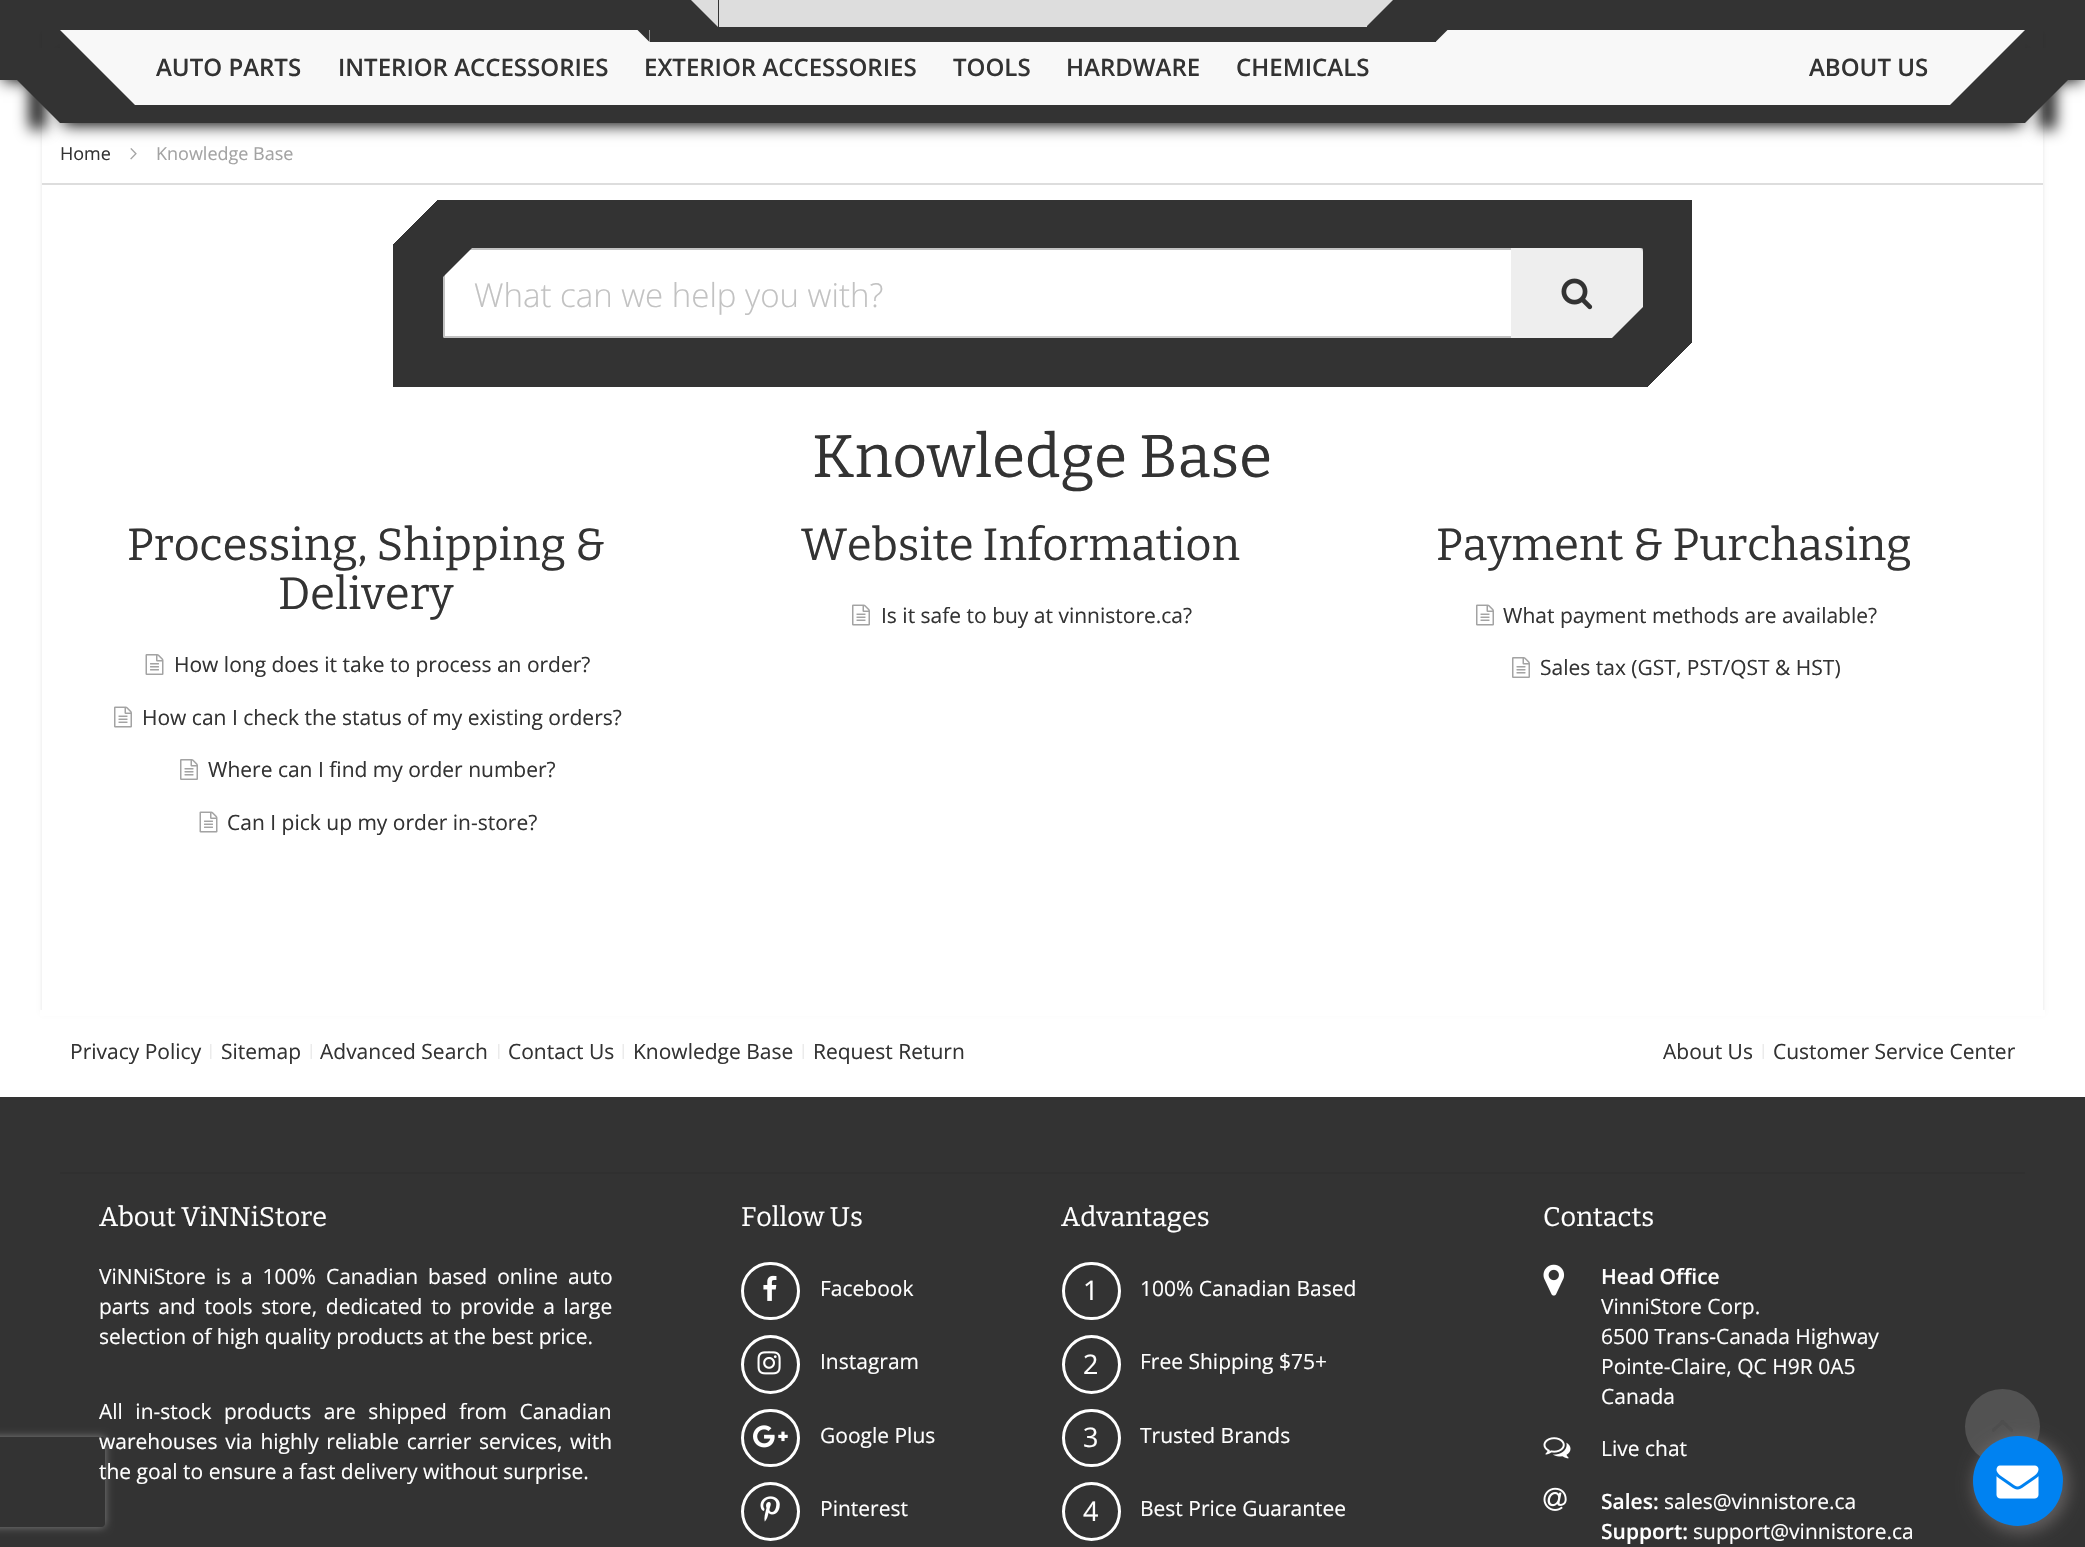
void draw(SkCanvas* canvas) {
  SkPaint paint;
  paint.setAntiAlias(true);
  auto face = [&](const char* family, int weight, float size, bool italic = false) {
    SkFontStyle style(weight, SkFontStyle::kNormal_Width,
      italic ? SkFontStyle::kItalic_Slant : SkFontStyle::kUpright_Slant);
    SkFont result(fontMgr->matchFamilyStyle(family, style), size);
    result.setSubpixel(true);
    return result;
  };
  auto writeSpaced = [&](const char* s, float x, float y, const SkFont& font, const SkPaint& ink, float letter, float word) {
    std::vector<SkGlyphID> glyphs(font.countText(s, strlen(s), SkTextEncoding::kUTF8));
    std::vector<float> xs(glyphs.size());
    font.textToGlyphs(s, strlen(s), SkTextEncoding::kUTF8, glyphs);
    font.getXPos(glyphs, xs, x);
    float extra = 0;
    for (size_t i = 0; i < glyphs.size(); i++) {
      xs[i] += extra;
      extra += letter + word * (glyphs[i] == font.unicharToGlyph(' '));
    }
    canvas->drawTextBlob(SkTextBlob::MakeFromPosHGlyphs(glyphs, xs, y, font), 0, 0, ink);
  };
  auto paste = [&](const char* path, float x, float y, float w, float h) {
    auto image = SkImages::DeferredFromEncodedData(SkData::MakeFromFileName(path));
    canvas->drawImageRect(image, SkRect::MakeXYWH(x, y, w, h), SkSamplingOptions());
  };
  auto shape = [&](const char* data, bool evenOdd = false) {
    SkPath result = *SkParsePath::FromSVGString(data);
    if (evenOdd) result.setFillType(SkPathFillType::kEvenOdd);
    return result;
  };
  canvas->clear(0xffffffff);
  paint.setColor(0xff333333);
  canvas->drawRect(SkRect::MakeXYWH(0, 1097, 2085, 450), paint);
  canvas->save();
  canvas->clipPath(shape("M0 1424H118V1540H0ZM-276 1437H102C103.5 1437 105 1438.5 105 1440V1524C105 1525.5 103.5 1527 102 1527H-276C-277.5 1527-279 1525.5-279 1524V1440C-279 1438.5-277.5 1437-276 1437Z", true), true);
  paint.setColor(0xff808080);
  paint.setMaskFilter(SkMaskFilter::MakeBlur(kNormal_SkBlurStyle, 4));
  canvas->drawRoundRect(SkRect::MakeXYWH(-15, 1437, 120, 90), 3, 3, paint);
  paint.setMaskFilter(nullptr);
  canvas->restore();
  paint.setColor(0xff000000);
  paint.setMaskFilter(SkMaskFilter::MakeBlur(kNormal_SkBlurStyle, 7.5f));
  canvas->drawRect(SkRect::MakeXYWH(3, -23, 2079, 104), paint);
  paint.setMaskFilter(nullptr);
  paint.setColor(0xff333333);
  canvas->drawRect(SkRect::MakeXYWH(0, 0, 2085, 80), paint);
  paint.setColor(0xffdddddd);
  canvas->drawRect(SkRect::MakeXYWH(719, 0, 648, 27), paint);
  canvas->drawPath(shape("M718-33V27L658-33Z"), paint);
  canvas->drawPath(shape("M1366-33H1426L1366 27Z"), paint);
  paint.setColor(0x1a000000);
  paint.setMaskFilter(SkMaskFilter::MakeBlur(kNormal_SkBlurStyle, 2));
  canvas->drawRect(SkRect::MakeXYWH(42, 108, 2001, 905), paint);
  paint.setMaskFilter(nullptr);
  paint.setColor(0xffffffff);
  canvas->drawRect(SkRect::MakeXYWH(42, 105, 2001, 905), paint);
  paste("img/1.png", 130, 148, 7, 12);
  paint.setColor(0xff000000);
  paint.setMaskFilter(SkMaskFilter::MakeBlur(kNormal_SkBlurStyle, 7.5f));
  canvas->drawRect(SkRect::MakeXYWH(63, 56, 1959, 69), paint);
  paint.setMaskFilter(nullptr);
  canvas->save();
  canvas->clipPath(shape("M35 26H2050V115H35ZM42 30H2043V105H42Z", true), true);
  paint.setColor(0x1a000000);
  paint.setMaskFilter(SkMaskFilter::MakeBlur(kNormal_SkBlurStyle, 2));
  canvas->drawRect(SkRect::MakeXYWH(42, 33, 2001, 75), paint);
  paint.setMaskFilter(nullptr);
  canvas->restore();
  paint.setColor(0xff333333);
  canvas->drawRect(SkRect::MakeXYWH(60, 105, 1965, 18), paint);
  paint.setColor(0xff000000);
  paint.setMaskFilter(SkMaskFilter::MakeBlur(kNormal_SkBlurStyle, 7.5f));
  canvas->drawRect(SkRect::MakeXYWH(30, 69, 15, 60), paint);
  paint.setMaskFilter(nullptr);
  paint.setMaskFilter(SkMaskFilter::MakeBlur(kNormal_SkBlurStyle, 7.5f));
  canvas->drawRect(SkRect::MakeXYWH(2040, 69, 15, 60), paint);
  paint.setMaskFilter(nullptr);
  paint.setColor(0xfff8f8f8);
  canvas->drawRect(SkRect::MakeXYWH(60, 30, 1965, 75), paint);
  paint.setColor(0xff333333);
  canvas->drawPath(shape("M60 105V30L135 105Z"), paint);
  canvas->drawRect(SkRect::MakeXYWH(650, 30, 786, 12), paint);
  canvas->drawPath(shape("M649.5 30V42L637.5 30Z"), paint);
  canvas->drawPath(shape("M1435.5 30H1447.5L1435.5 42Z"), paint);
  canvas->drawPath(shape("M2025 105H1950L2025 30Z"), paint);
  canvas->drawPath(shape("M60 48V123L-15 48Z"), paint);
  canvas->drawPath(shape("M2025 48H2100L2025 123Z"), paint);
  paint.setColor(0xffdddddd);
  canvas->drawRect(SkRect::MakeXYWH(42, 183, 2001, 2), paint);
  {
    const SkColor colors[] = {0xffffffff, 0xff333333, 0xff333333, 0xffffffff, 0xffffffff};
    const float stops[] = {0.03f, 0.03f, 0.97f, 0.97f, 1};
    const SkPoint ends[] = {{671, -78}, {1414, 665}};
    paint.setShader(SkGradientShader::MakeLinear(ends, colors, stops, 5, SkTileMode::kClamp));
    paint.setAlpha(255);
  }
  canvas->drawRect(SkRect::MakeXYWH(393, 200, 1299, 187), paint);
  paint.setShader(nullptr);
  paint.setColor(0xffffffff);
  canvas->drawRect(SkRect::MakeXYWH(445, 250, 1066, 86), paint);
  paint.setStroke(true);
  paint.setStrokeWidth(2);
  paint.setColor(0xffc2c2c2);
  canvas->drawRoundRect(SkRect::MakeXYWH(444, 249, 1198, 88), 0.5f, 0.5f, paint);
  paint.setStroke(false);
  paint.setColor(0xffeeeeee);
  canvas->drawPath(shape("M1511 248H1638C1641 248 1643 250 1643 253V333C1643 336 1641 338 1638 338H1511Z"), paint);
  paste("img/2.png", 1561, 278, 32, 32);
  paint.setColor(0xff333333);
  canvas->drawPath(shape("M1650 345H1605L1650 300Z"), paint);
  paste("img/3.png", 145, 654, 19, 21);
  paste("img/4.png", 114, 706, 18, 22);
  paste("img/5.png", 180, 759, 18, 21);
  paste("img/6.png", 199, 811, 19, 22);
  paste("img/4.png", 852, 604, 18, 22);
  paste("img/4.png", 1476, 604, 18, 22);
  paste("img/5.png", 1512, 657, 18, 21);
  paint.setColor(0xffffffff);
  canvas->drawRect(SkRect::MakeXYWH(40, 1010, 2005, 6), paint);
  paste("img/7.png", 210, 1044, 2, 15);
  paste("img/8.png", 310, 1044, 2, 15);
  paste("img/7.png", 498, 1044, 2, 15);
  paste("img/8.png", 622, 1044, 2, 15);
  paste("img/8.png", 802, 1044, 2, 15);
  paste("img/8.png", 1762, 1044, 2, 15);
  paint.setColor(0xff303030);
  canvas->drawRect(SkRect::MakeXYWH(60, 1172, 1965, 2), paint);
  paint.setStroke(true);
  paint.setStrokeWidth(3);
  paint.setColor(0xffffffff);
  canvas->drawRoundRect(SkRect::MakeXYWH(742.5f, 1263.5f, 56, 55), 27.5f, 27.5f, paint);
  paste("img/9.png", 763, 1275, 14, 26);
  canvas->drawCircle(770.5f, 1364.5f, 28, paint);
  paste("img/10.png", 757, 1351, 24, 24);
  canvas->drawRoundRect(SkRect::MakeXYWH(742.5f, 1410.5f, 56, 55), 27.5f, 27.5f, paint);
  paste("img/11.png", 753, 1425, 35, 23);
  canvas->drawCircle(770.5f, 1511.5f, 28, paint);
  paste("img/12.png", 760, 1496, 20, 26);
  canvas->drawRoundRect(SkRect::MakeXYWH(1063.5f, 1263.5f, 56, 55), 27.5f, 27.5f, paint);
  canvas->drawCircle(1091.5f, 1364.5f, 28, paint);
  canvas->drawRoundRect(SkRect::MakeXYWH(1063.5f, 1410.5f, 56, 55), 27.5f, 27.5f, paint);
  canvas->drawCircle(1091.5f, 1511.5f, 28, paint);
  paste("img/13.png", 1543, 1264, 22, 32);
  paste("img/14.png", 1543, 1437, 28, 22);
  paste("img/15.png", 1543, 1487, 24, 24);
  paint.setStroke(false);
  paint.setColor(0xff525252);
  canvas->drawCircle(2002.5f, 1426.5f, 37.5f, paint);
  paste("img/16.png", 1992, 1420, 21, 12);
  paint.setColor(0x808b8585);
  paint.setMaskFilter(SkMaskFilter::MakeBlur(kNormal_SkBlurStyle, 7.5f));
  canvas->drawRoundRect(SkRect::MakeXYWH(1973, 1437, 96, 96), 48, 48, paint);
  paint.setMaskFilter(nullptr);
  paint.setColor(0xff0082f1);
  canvas->drawCircle(2018, 1481, 45, paint);
  paste("img/17.png", 1996, 1465, 43, 34);
  auto f0 = face("Open Sans", 600, 24);
  paint.setColor(0xff333333);
  {
    const struct { const char* s; float x, y; } items[] = {
      {"AUTO PARTS", 156, 76},
      {"INTERIOR ACCESSORIES", 338, 76},
      {"EXTERIOR ACCESSORIES", 644, 76},
      {"TOOLS", 953, 76},
      {"HARDWARE", 1066, 76},
      {"CHEMICALS", 1236, 76},
      {"ABOUT US", 1809, 76},
    };
    for (auto [s, x, y] : items) {
      canvas->drawString(s, x, y, f0, paint);
    }
  }
  auto f1 = face("Open Sans", 400, 18);
  canvas->drawString("Home", 60, 160, f1, paint);
  paint.setColor(0xffa3a3a3);
  canvas->drawString("Knowledge Base", 156, 160, f1, paint);
  auto f2 = face("Open Sans", 300, 33);
  paint.setColor(0xffc2c2c2);
  canvas->drawString("What can we help you with?", 474, 307, f2, paint);
  paint.setColor(0xff333333);
  canvas->drawPath(shape("M435 240H480L435 285Z"), paint);
  auto f3 = face("Bitter", 100, 60);
  canvas->drawString("Knowledge Base", 812, 477, f3, paint);
  auto f4 = face("Bitter", 100, 45);
  canvas->drawString("Processing, Shipping &", 127, 560, f4, paint);
  canvas->drawString("Delivery", 278, 609, f4, paint);
  auto f5 = face("Open Sans", 400, 21);
  {
    const struct { const char* s; float x, y; } items[] = {
      {"How long does it take to process an order?", 174, 672},
      {"How can I check the status of my existing orders?", 142, 725},
      {"Where can I find my order number?", 208, 777},
      {"Can I pick up my order in-store?", 227, 830},
    };
    for (auto [s, x, y] : items) {
      canvas->drawString(s, x, y, f5, paint);
    }
  }
  canvas->drawString("Website Information", 801, 560, f4, paint);
  canvas->drawString("Is it safe to buy at vinnistore.ca?", 881, 623, f5, paint);
  canvas->drawString("Payment & Purchasing", 1436, 560, f4, paint);
  {
    const struct { const char* s; float x, y; } items[] = {
      {"What payment methods are available?", 1503, 623},
      {"Sales tax (GST, PST/QST & HST)", 1540, 675},
      {"Privacy Policy", 70, 1059},
      {"Sitemap", 221, 1059},
      {"Advanced Search", 320, 1059},
      {"Contact Us", 508, 1059},
      {"Knowledge Base", 633, 1059},
      {"Request Return", 813, 1059},
      {"About Us", 1663, 1059},
      {"Customer Service Center", 1773, 1059},
    };
    for (auto [s, x, y] : items) {
      canvas->drawString(s, x, y, f5, paint);
    }
  }
  auto f6 = face("Bitter", 100, 27);
  paint.setColor(0xffffffff);
  canvas->drawString("About ViNNiStore", 99, 1226, f6, paint);
  writeSpaced("ViNNiStore is a 100% Canadian based online auto", 99, 1284, f5, paint, 0, 4.5f);
  writeSpaced("parts and tools store, dedicated to provide a large", 99, 1314, f5, paint, 0, 3.25f);
  canvas->drawString("selection of high quality products at the best price.", 99, 1344, f5, paint);
  writeSpaced("All in-stock products are shipped from Canadian", 99, 1419, f5, paint, 0, 7);
  writeSpaced("warehouses via highly reliable carrier services, with", 99, 1449, f5, paint, 0, 2.25f);
  canvas->drawString("the goal to ensure a fast delivery without surprise.", 99, 1479, f5, paint);
  canvas->drawString("Follow Us", 741, 1226, f6, paint);
  {
    const struct { const char* s; float x, y; } items[] = {
      {"Facebook", 820, 1296},
      {"Instagram", 820, 1369},
      {"Google Plus", 820, 1443},
      {"Pinterest", 820, 1516},
    };
    for (auto [s, x, y] : items) {
      canvas->drawString(s, x, y, f5, paint);
    }
  }
  canvas->drawString("Advantages", 1061, 1226, f6, paint);
  auto f7 = face("Open Sans", 400, 27);
  canvas->drawString("1", 1083, 1300, f7, paint);
  canvas->drawString("100% Canadian Based", 1140, 1296, f5, paint);
  canvas->drawString("2", 1083, 1374, f7, paint);
  canvas->drawString("Free Shipping $75+", 1140, 1369, f5, paint);
  canvas->drawString("3", 1083, 1447, f7, paint);
  canvas->drawString("Trusted Brands", 1140, 1443, f5, paint);
  canvas->drawString("4", 1083, 1521, f7, paint);
  canvas->drawString("Best Price Guarantee", 1140, 1516, f5, paint);
  canvas->drawString("Contacts", 1543, 1226, f6, paint);
  auto f8 = face("Open Sans", 600, 21);
  canvas->drawString("Head Office", 1601, 1284, f8, paint);
  {
    const struct { const char* s; float x, y; } items[] = {
      {"VinniStore Corp.", 1601, 1314},
      {"6500 Trans-Canada Highway", 1601, 1344},
      {"Pointe-Claire, QC H9R 0A5", 1601, 1374},
      {"Canada", 1601, 1404},
      {"Live chat", 1601, 1456},
    };
    for (auto [s, x, y] : items) {
      canvas->drawString(s, x, y, f5, paint);
    }
  }
  canvas->drawString("Sales:", 1601, 1509, f8, paint);
  canvas->drawString("sales@vinnistore.ca", 1664, 1509, f5, paint);
  canvas->drawString("Support:", 1601, 1539, f8, paint);
  canvas->drawString("support@vinnistore.ca", 1693, 1539, f5, paint);
}
